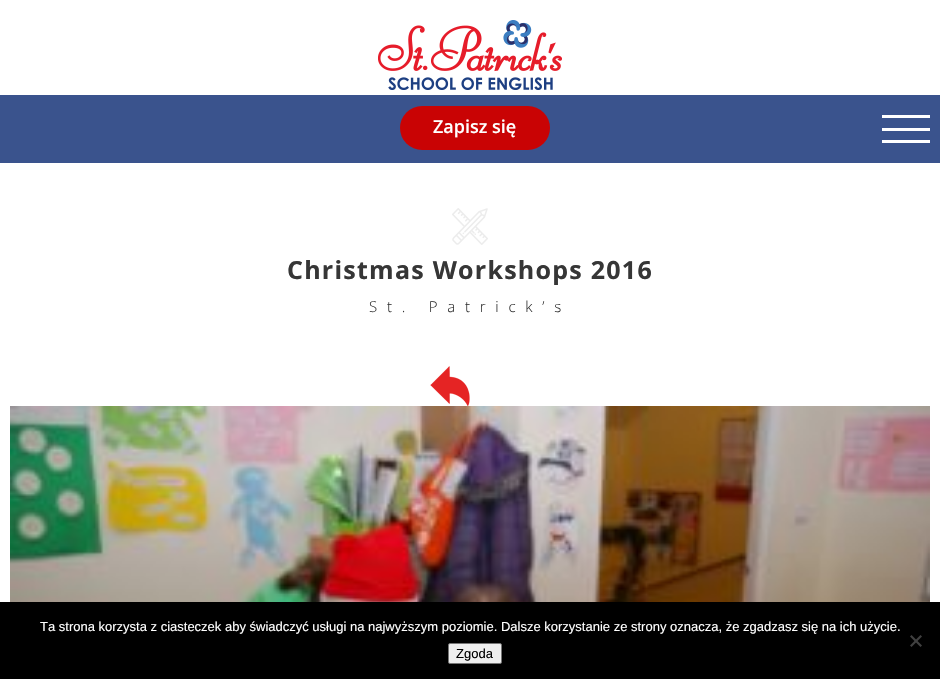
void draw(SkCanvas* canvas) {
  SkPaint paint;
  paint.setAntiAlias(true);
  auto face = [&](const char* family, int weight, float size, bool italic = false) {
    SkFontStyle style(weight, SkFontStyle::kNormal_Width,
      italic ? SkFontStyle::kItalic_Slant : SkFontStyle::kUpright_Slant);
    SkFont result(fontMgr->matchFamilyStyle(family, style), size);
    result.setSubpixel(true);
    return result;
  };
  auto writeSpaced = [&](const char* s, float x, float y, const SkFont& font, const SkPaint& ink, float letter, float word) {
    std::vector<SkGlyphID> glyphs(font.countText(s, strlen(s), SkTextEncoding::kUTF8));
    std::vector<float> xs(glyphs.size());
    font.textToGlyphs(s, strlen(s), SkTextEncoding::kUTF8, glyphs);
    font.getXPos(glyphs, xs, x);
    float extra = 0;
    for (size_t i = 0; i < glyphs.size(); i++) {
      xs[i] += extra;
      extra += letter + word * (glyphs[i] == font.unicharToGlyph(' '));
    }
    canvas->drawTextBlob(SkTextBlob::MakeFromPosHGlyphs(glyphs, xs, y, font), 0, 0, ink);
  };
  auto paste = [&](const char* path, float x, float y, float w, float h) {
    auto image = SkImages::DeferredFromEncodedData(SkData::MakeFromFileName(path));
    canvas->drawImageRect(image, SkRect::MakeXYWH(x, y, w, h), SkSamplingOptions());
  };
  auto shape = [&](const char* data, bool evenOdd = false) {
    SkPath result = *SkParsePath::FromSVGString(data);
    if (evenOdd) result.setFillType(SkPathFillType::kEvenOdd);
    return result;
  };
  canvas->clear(0xffffffff);
  paint.setColor(0xff3a538d);
  canvas->drawRect(SkRect::MakeXYWH(0, 95, 940, 68), paint);
  paste("img/1.png", 378, 20, 184, 70);
  paint.setColor(0xffc90304);
  canvas->drawRoundRect(SkRect::MakeXYWH(400, 106, 150, 44), 22, 22, paint);
  {
    const struct { float x, y, w, h; SkColor color; } items[] = {
      {882, 115, 48, 3, 0xffffffff},
      {882, 128, 48, 3, 0xffffffff},
      {882, 140, 48, 3, 0xffffffff},
    };
    for (auto [x, y, w, h, color] : items) {
      paint.setColor(color);
      canvas->drawRect(SkRect::MakeXYWH(x, y, w, h), paint);
    }
  }
  paste("img/2.png", 452, 208, 36, 37);
  paste("img/3.png", 430, 366, 40, 40);
  paste("img/4.png", 10, 406, 920, 196);
  paint.setColor(0xff000000);
  canvas->drawRect(SkRect::MakeXYWH(0, 602, 940, 77), paint);
  paint.setColor(0xff404040);
  canvas->drawPath(shape("M920.5 635L922 636.5L911.5 647L910 645.5Z"), paint);
  canvas->drawPath(shape("M910 636.5L911.5 635L922 645.5L920.5 647Z"), paint);
  paint.setColor(0xffefefef);
  canvas->drawRoundRect(SkRect::MakeXYWH(448.5f, 643.5f, 53, 20), 1.5f, 1.5f, paint);
  paint.setStroke(true);
  paint.setStrokeWidth(1);
  paint.setColor(0xff767676);
  canvas->drawRoundRect(SkRect::MakeXYWH(448.5f, 643.5f, 53, 20), 1.5f, 1.5f, paint);
  auto f0 = face("Open Sans", 600, 18);
  paint.setStroke(false);
  paint.setColor(0xffffffff);
  canvas->drawString("Zapisz się", 433, 133, f0, paint);
  auto f1 = face("Open Sans", 700, 25);
  paint.setColor(0xff363636);
  writeSpaced("Christmas Workshops 2016", 287, 279, f1, paint, 1.25f, 0);
  auto f2 = face("Open Sans", 300, 15);
  writeSpaced("St. Patrick’s", 369, 312, f2, paint, 9.75f, 0);
  auto f3 = face("Liberation Sans", 400, 13);
  paint.setColor(0xffffffff);
  canvas->drawString("Ta strona korzysta z ciasteczek aby świadczyć usługi na najwyższym poziomie. Dalsze korzystanie ze strony oznacza, że zgadzasz się na ich użycie.", 40, 631, f3, paint);
  paint.setColor(0xff000000);
  canvas->drawString("Zgoda", 456, 658, f3, paint);
}
